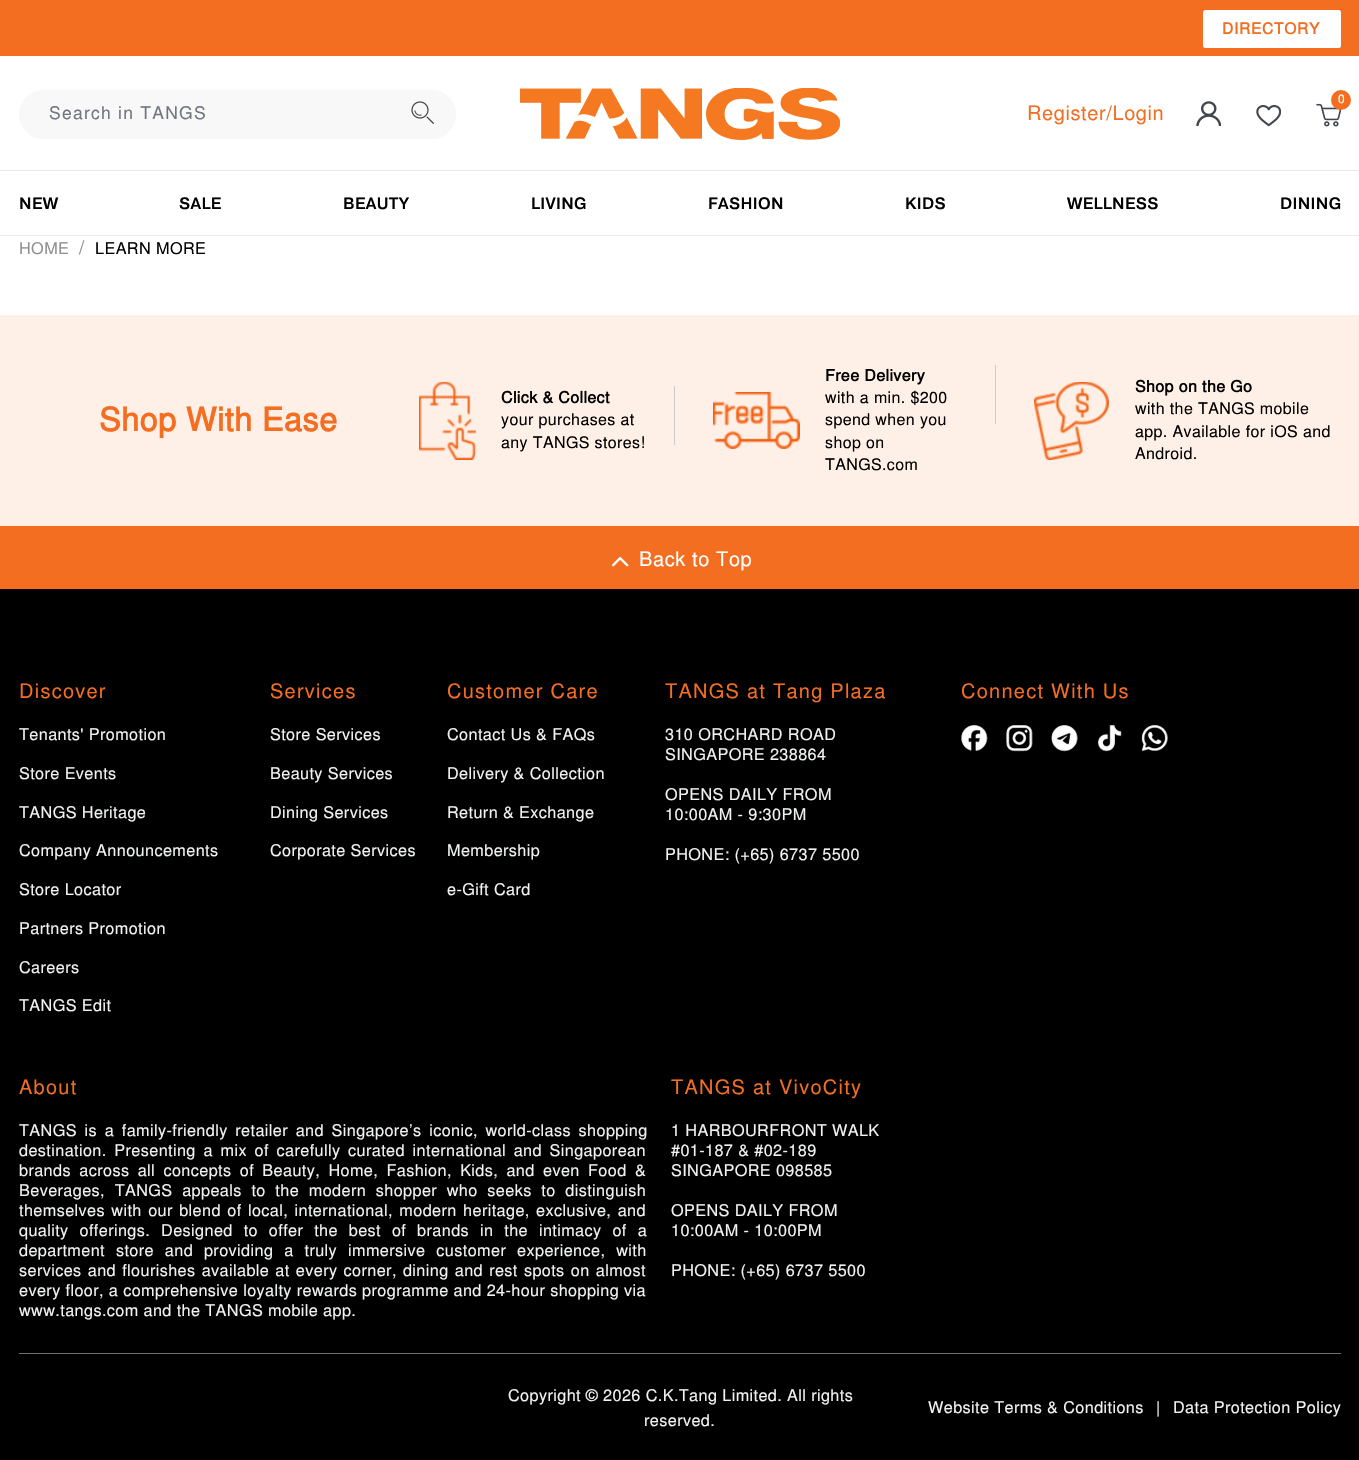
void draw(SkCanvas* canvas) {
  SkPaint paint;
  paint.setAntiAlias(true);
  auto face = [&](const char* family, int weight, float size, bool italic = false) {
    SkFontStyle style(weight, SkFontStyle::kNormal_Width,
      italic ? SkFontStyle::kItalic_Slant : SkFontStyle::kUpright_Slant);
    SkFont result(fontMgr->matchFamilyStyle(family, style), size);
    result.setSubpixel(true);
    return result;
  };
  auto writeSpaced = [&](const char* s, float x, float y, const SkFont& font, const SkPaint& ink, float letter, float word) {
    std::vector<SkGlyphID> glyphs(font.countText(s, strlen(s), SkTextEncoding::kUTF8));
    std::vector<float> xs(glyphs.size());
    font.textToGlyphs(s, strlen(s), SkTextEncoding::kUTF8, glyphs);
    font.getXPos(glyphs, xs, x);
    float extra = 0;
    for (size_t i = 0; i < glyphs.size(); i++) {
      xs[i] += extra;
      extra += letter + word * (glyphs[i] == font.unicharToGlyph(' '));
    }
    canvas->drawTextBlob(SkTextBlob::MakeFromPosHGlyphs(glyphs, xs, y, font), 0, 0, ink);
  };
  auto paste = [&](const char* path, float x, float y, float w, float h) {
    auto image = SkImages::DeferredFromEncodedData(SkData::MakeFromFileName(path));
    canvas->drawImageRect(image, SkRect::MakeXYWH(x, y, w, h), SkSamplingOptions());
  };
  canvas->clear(0xffffffff);
  paint.setColor(0xfff36e21);
  canvas->drawRect(SkRect::MakeXYWH(0, 0, 1359, 56), paint);
  paint.setColor(0xffffffff);
  canvas->drawRoundRect(SkRect::MakeXYWH(1203, 10, 138, 38), 2.5f, 2.5f, paint);
  paint.setColor(0xfff8f8f8);
  canvas->drawRoundRect(SkRect::MakeXYWH(19, 90, 437, 49), 24.5f, 24.5f, paint);
  paste("img/1.png", 411, 101, 23, 23);
  paste("img/2.png", 520, 88, 320, 52);
  paste("img/3.png", 1316, 103, 25, 24);
  paint.setColor(0xfff36e21);
  canvas->drawCircle(1341, 100, 10, paint);
  paste("img/4.png", 1196, 101, 25, 25);
  paste("img/5.png", 1256, 105, 25, 22);
  {
    const struct { float x, y, w, h; SkColor color; } items[] = {
      {0, 170, 1359, 1, 0xffebebeb},
      {0, 235, 1359, 1, 0xffebebeb},
      {0, 315, 1359, 211, 0xfffff0e7},
    };
    for (auto [x, y, w, h, color] : items) {
      paint.setColor(color);
      canvas->drawRect(SkRect::MakeXYWH(x, y, w, h), paint);
    }
  }
  paste("img/6.png", 419, 382, 57, 78);
  paint.setColor(0xffcccccc);
  canvas->drawRect(SkRect::MakeXYWH(674, 386, 1, 59), paint);
  paste("img/7.png", 713, 392, 87, 57);
  canvas->drawRect(SkRect::MakeXYWH(995, 365, 1, 59), paint);
  paste("img/8.png", 1034, 382, 75, 78);
  paint.setColor(0xfff36e21);
  canvas->drawRect(SkRect::MakeXYWH(0, 526, 1359, 63), paint);
  paste("img/9.png", 611, 557, 18, 10);
  paint.setColor(0xff000000);
  canvas->drawRect(SkRect::MakeXYWH(0, 589, 1359, 871), paint);
  paste("img/10.png", 961, 725, 27, 26);
  paste("img/11.png", 1006, 725, 27, 27);
  paste("img/12.png", 1051, 725, 27, 27);
  paste("img/13.png", 1097, 725, 25, 27);
  paste("img/14.png", 1141, 725, 27, 27);
  paint.setColor(0xff6d6f70);
  canvas->drawRect(SkRect::MakeXYWH(19, 1353, 1322, 1), paint);
  auto f0 = face("FreeSans", 700, 15.5f);
  paint.setColor(0xfff36e21);
  writeSpaced("DIRECTORY", 1222, 34, f0, paint, 0.75f, 0);
  auto f1 = face("FreeSans", 400, 17.5f);
  paint.setColor(0xff72757e);
  writeSpaced("Search in TANGS", 49, 119, f1, paint, 1.25f, 0);
  auto f2 = face("FreeSans", 400, 12);
  paint.setColor(0xffffffff);
  writeSpaced("0", 1338, 103, f2, paint, 0.38f, 0);
  auto f3 = face("FreeSans", 400, 20);
  paint.setColor(0xfff36e21);
  writeSpaced("Register/Login", 1027, 120, f3, paint, 0.6f, 0);
  auto f4 = face("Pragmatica", 500, 16.25f);
  paint.setColor(0xff000000);
  {
    const struct { const char* s; float x, y; } items[] = {
      {"NEW", 19, 209},
      {"SALE", 179, 209},
      {"BEAUTY", 343, 209},
      {"LIVING", 531, 209},
      {"FASHION", 708, 209},
      {"KIDS", 905, 209},
      {"WELLNESS", 1067, 209},
      {"DINING", 1280, 209},
    };
    for (auto [s, x, y] : items) {
      writeSpaced(s, x, y, f4, paint, 0.38f, 0);
    }
  }
  auto f5 = face("FreeSans", 400, 16.25f);
  paint.setColor(0xff8e8f90);
  writeSpaced("HOME", 19, 254, f5, paint, 0.38f, 0);
  auto f6 = face("FreeSans", 400, 19);
  writeSpaced("/", 79, 254, f6, paint, 0.38f, 0);
  paint.setColor(0xff000000);
  writeSpaced("LEARN MORE", 95, 254, f5, paint, 0.38f, 0);
  auto f7 = face("FreeSans", 700, 32.5f);
  paint.setColor(0xfff36e21);
  writeSpaced("Shop With Ease", 99, 431, f7, paint, 0.38f, 0);
  auto f8 = face("FreeSans", 700, 16);
  paint.setColor(0xff000000);
  writeSpaced("Click & Collect", 501, 403, f8, paint, 0.38f, 0);
  auto f9 = face("FreeSans", 400, 16);
  writeSpaced("your purchases at", 501, 425, f9, paint, 0.38f, 0);
  writeSpaced("any TANGS stores!", 501, 448, f9, paint, 0.38f, 0);
  writeSpaced("Free Delivery", 825, 381, f8, paint, 0.38f, 0);
  {
    const struct { const char* s; float x, y; } items[] = {
      {"with a min. $200", 825, 403},
      {"spend when you", 825, 425},
      {"shop on", 825, 448},
      {"TANGS.com", 825, 470},
    };
    for (auto [s, x, y] : items) {
      writeSpaced(s, x, y, f9, paint, 0.38f, 0);
    }
  }
  writeSpaced("Shop on the Go", 1135, 392, f8, paint, 0.38f, 0);
  {
    const struct { const char* s; float x, y; } items[] = {
      {"with the TANGS mobile", 1135, 414},
      {"app. Available for iOS and", 1135, 437},
      {"Android.", 1135, 459},
    };
    for (auto [s, x, y] : items) {
      writeSpaced(s, x, y, f9, paint, 0.38f, 0);
    }
  }
  paint.setColor(0xffffffff);
  writeSpaced("Back to Top", 639, 566, f3, paint, 0.6f, 0);
  paint.setColor(0xfff36e21);
  writeSpaced("Discover", 19, 698, f3, paint, 1.25f, 0);
  paint.setColor(0xfff1f2f3);
  {
    const struct { const char* s; float x, y; } items[] = {
      {"Tenants' Promotion", 19, 740},
      {"Store Events", 19, 779},
      {"TANGS Heritage", 19, 818},
      {"Company Announcements", 19, 856},
      {"Store Locator", 19, 895},
      {"Partners Promotion", 19, 934},
      {"Careers", 19, 973},
      {"TANGS Edit", 19, 1011},
    };
    for (auto [s, x, y] : items) {
      writeSpaced(s, x, y, f5, paint, 0.38f, 0);
    }
  }
  paint.setColor(0xfff36e21);
  writeSpaced("Services", 270, 698, f3, paint, 1.25f, 0);
  paint.setColor(0xfff1f2f3);
  {
    const struct { const char* s; float x, y; } items[] = {
      {"Store Services", 270, 740},
      {"Beauty Services", 270, 779},
      {"Dining Services", 270, 818},
      {"Corporate Services", 270, 856},
    };
    for (auto [s, x, y] : items) {
      writeSpaced(s, x, y, f5, paint, 0.38f, 0);
    }
  }
  paint.setColor(0xfff36e21);
  writeSpaced("Customer Care", 447, 698, f3, paint, 1.25f, 0);
  paint.setColor(0xfff1f2f3);
  {
    const struct { const char* s; float x, y; } items[] = {
      {"Contact Us & FAQs", 447, 740},
      {"Delivery & Collection", 447, 779},
      {"Return & Exchange", 447, 818},
      {"Membership", 447, 856},
      {"e-Gift Card", 447, 895},
    };
    for (auto [s, x, y] : items) {
      writeSpaced(s, x, y, f5, paint, 0.38f, 0);
    }
  }
  paint.setColor(0xfff36e21);
  writeSpaced("TANGS at Tang Plaza", 665, 698, f3, paint, 1.25f, 0);
  paint.setColor(0xfff1f2f3);
  {
    const struct { const char* s; float x, y; } items[] = {
      {"310 ORCHARD ROAD", 665, 740},
      {"SINGAPORE 238864", 665, 760},
      {"OPENS DAILY FROM", 665, 800},
      {"10:00AM - 9:30PM", 665, 820},
      {"PHONE: (+65) 6737 5500", 665, 860},
    };
    for (auto [s, x, y] : items) {
      writeSpaced(s, x, y, f5, paint, 0.38f, 0);
    }
  }
  paint.setColor(0xfff36e21);
  writeSpaced("Connect With Us", 961, 698, f3, paint, 1.25f, 0);
  writeSpaced("About", 19, 1094, f3, paint, 1.25f, 0);
  paint.setColor(0xfff1f2f3);
  writeSpaced("TANGS is a family-friendly retailer and Singapore’s iconic, world-class shopping", 19, 1136, f5, paint, 0.38f, 2.75f);
  writeSpaced("destination. Presenting a mix of carefully curated international and Singaporean", 19, 1156, f5, paint, 0.38f, 2.75f);
  writeSpaced("brands across all concepts of Beauty, Home, Fashion, Kids, and even Food &", 19, 1176, f5, paint, 0.38f, 3.4f);
  writeSpaced("Beverages, TANGS appeals to the modern shopper who seeks to distinguish", 19, 1196, f5, paint, 0.38f, 4.75f);
  writeSpaced("themselves with our blend of local, international, modern heritage, exclusive, and", 19, 1216, f5, paint, 0.38f, 1.5f);
  writeSpaced("quality offerings. Designed to offer the best of brands in the intimacy of a", 19, 1236, f5, paint, 0.38f, 6);
  writeSpaced("department store and providing a truly immersive customer experience, with", 19, 1256, f5, paint, 0.38f, 6);
  writeSpaced("services and flourishes available at every corner, dining and rest spots on almost", 19, 1276, f5, paint, 0.38f, 1.25f);
  writeSpaced("every floor, a comprehensive loyalty rewards programme and 24-hour shopping via", 19, 1296, f5, paint, 0.38f, 0);
  writeSpaced("www.tangs.com and the TANGS mobile app.", 19, 1316, f5, paint, 0.38f, 0);
  paint.setColor(0xfff36e21);
  writeSpaced("TANGS at VivoCity", 671, 1094, f3, paint, 1.25f, 0);
  paint.setColor(0xfff1f2f3);
  {
    const struct { const char* s; float x, y; } items[] = {
      {"1 HARBOURFRONT WALK", 671, 1136},
      {"#01-187 & #02-189", 671, 1156},
      {"SINGAPORE 098585", 671, 1176},
      {"OPENS DAILY FROM", 671, 1216},
      {"10:00AM - 10:00PM", 671, 1236},
      {"PHONE: (+65) 6737 5500", 671, 1276},
      {"Copyright © 2026 C.K.Tang Limited. All rights", 508, 1401},
      {"reserved.", 644, 1426},
      {"Website Terms & Conditions", 928, 1413},
      {"|", 1156, 1413},
      {"Data Protection Policy", 1173, 1413},
    };
    for (auto [s, x, y] : items) {
      writeSpaced(s, x, y, f5, paint, 0.38f, 0);
    }
  }
}
